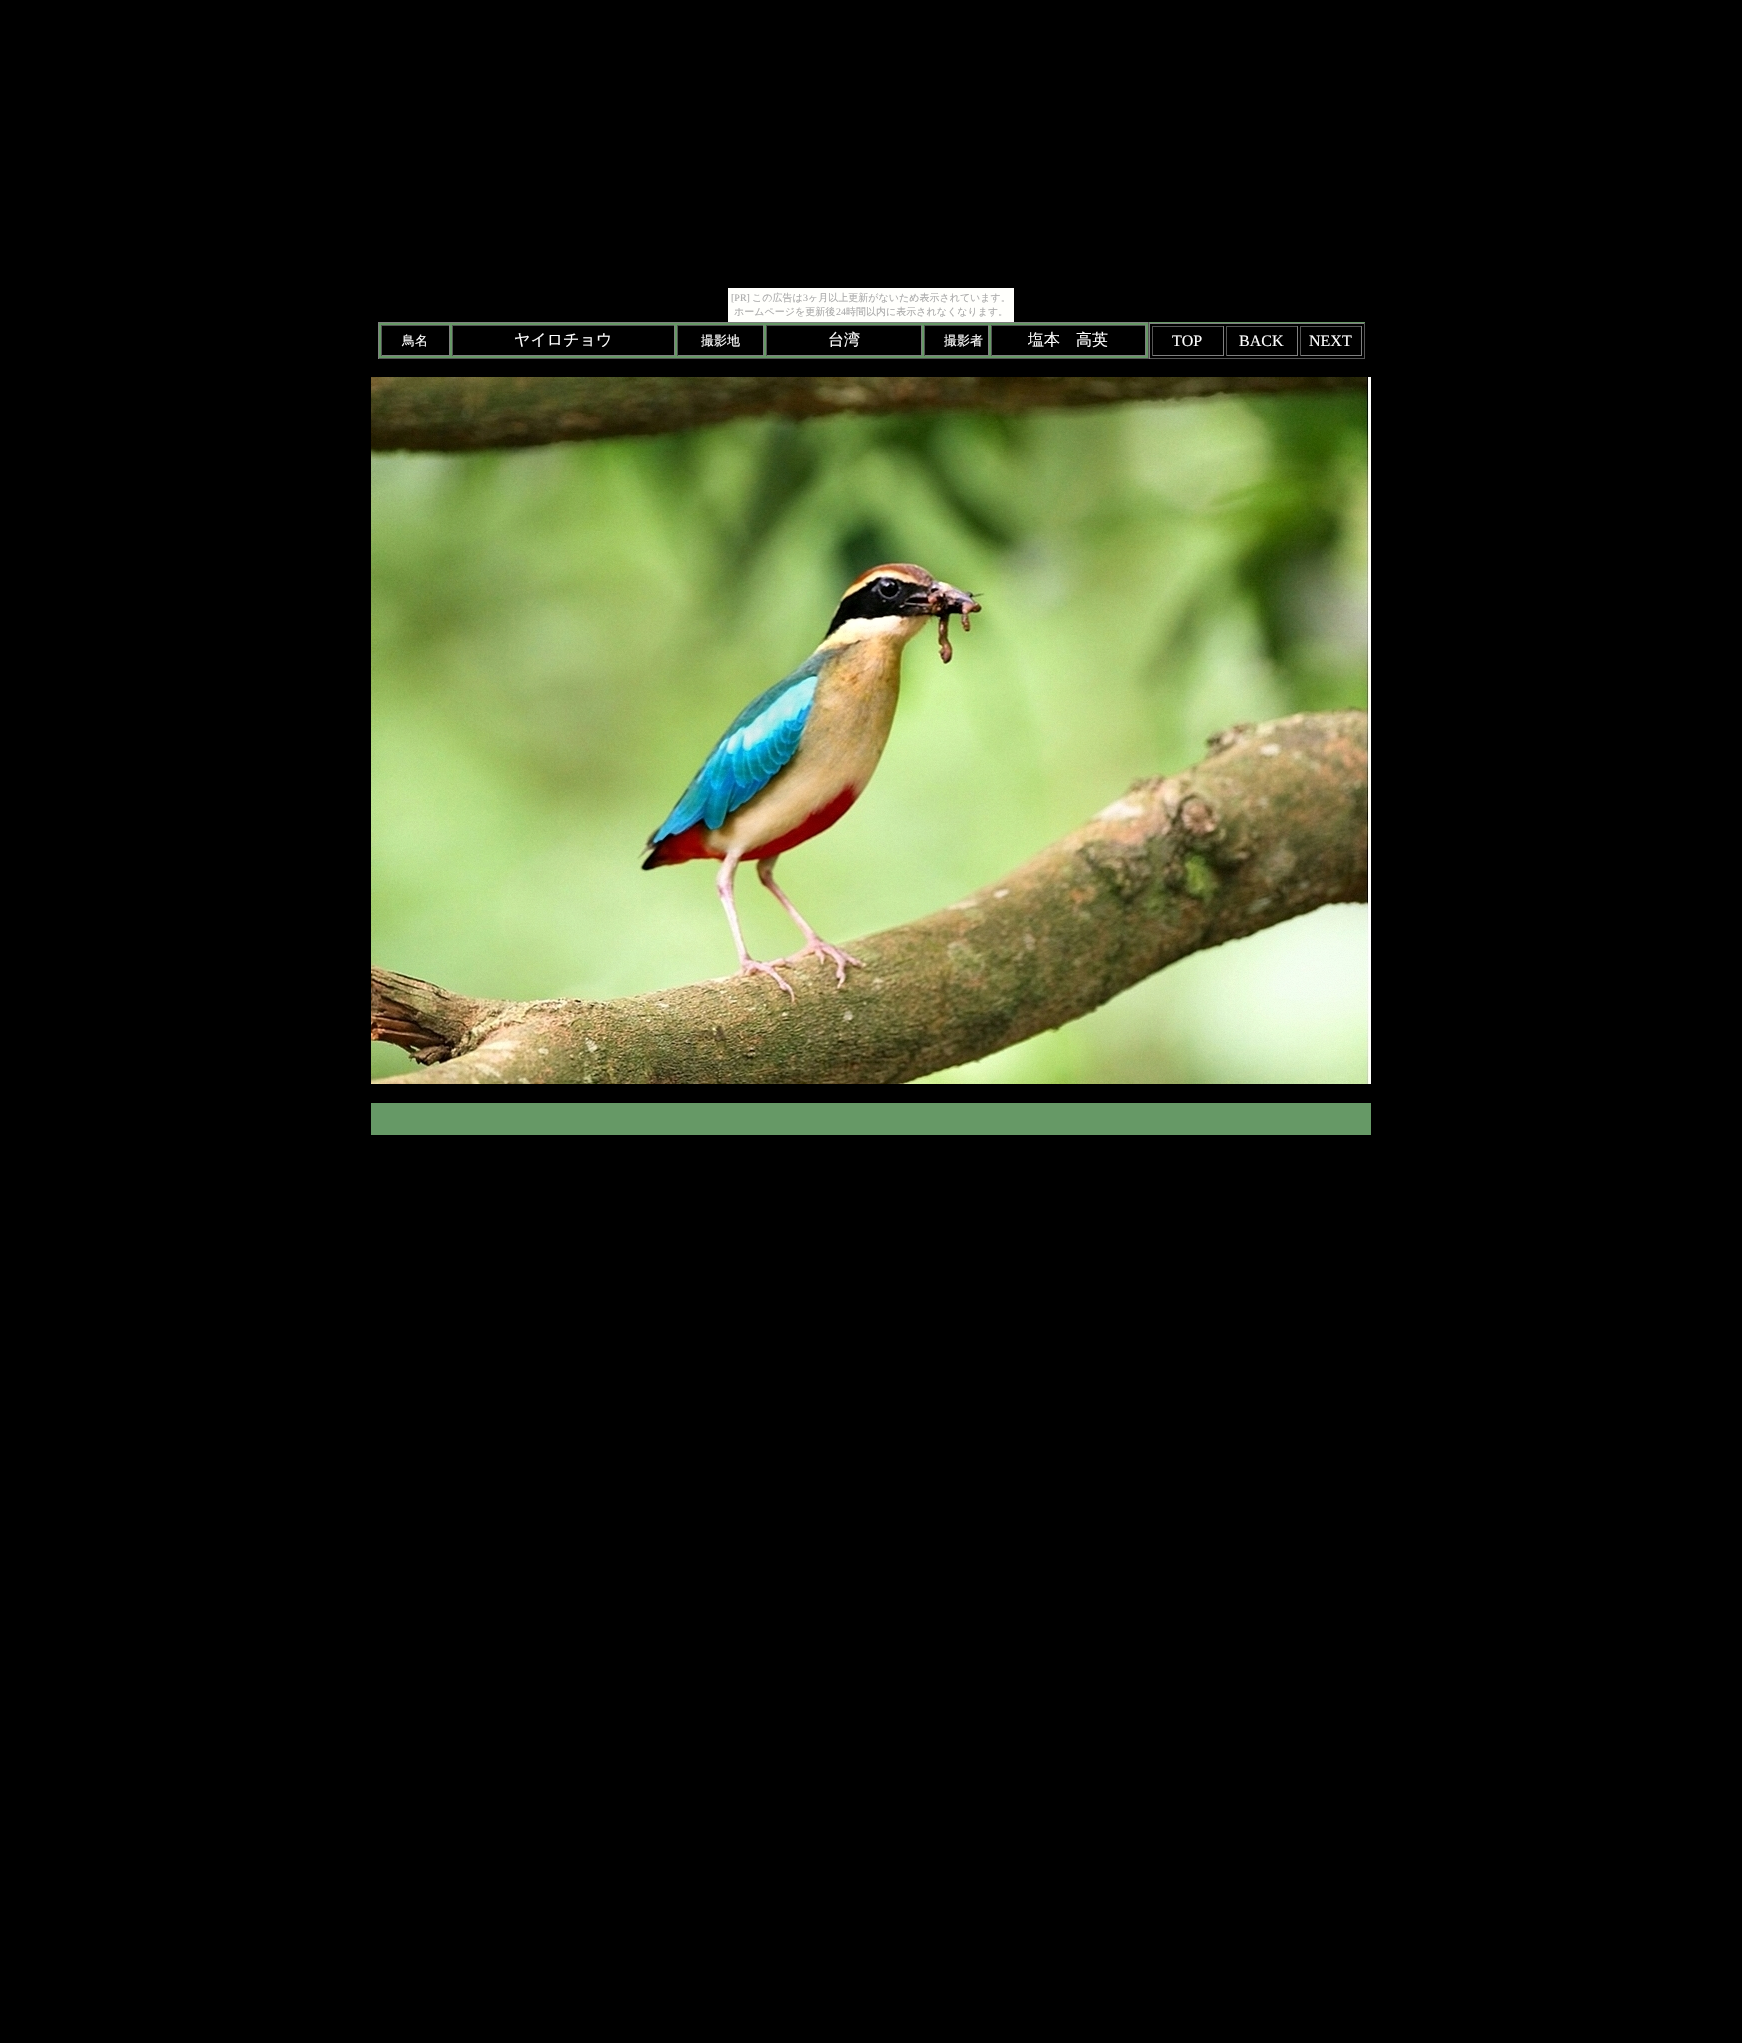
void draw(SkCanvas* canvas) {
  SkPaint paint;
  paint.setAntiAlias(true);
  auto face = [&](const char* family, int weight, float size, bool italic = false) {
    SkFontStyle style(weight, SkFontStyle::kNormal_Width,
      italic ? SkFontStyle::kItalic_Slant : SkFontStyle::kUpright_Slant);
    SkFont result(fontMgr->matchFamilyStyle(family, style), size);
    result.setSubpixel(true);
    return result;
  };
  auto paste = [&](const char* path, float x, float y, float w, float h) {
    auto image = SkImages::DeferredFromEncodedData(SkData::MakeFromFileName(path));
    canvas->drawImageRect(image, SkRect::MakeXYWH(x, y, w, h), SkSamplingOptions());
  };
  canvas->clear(0xff000000);
  {
    const struct { float x, y, w, h; SkColor color; } items[] = {
      {728, 288, 286, 34, 0xfffffffc},
      {379, 323, 769, 35, 0xff669966},
      {378, 322, 771, 1, 0xff808080},
      {1148, 322, 1, 37, 0xff555555},
      {378, 358, 771, 1, 0xff555555},
      {378, 322, 1, 37, 0xff808080},
      {382, 326, 67, 29, 0xff000000},
      {381, 325, 69, 1, 0xff555555},
      {449, 325, 1, 31, 0xff808080},
      {381, 355, 69, 1, 0xff808080},
      {381, 325, 1, 31, 0xff555555},
      {453, 326, 221, 29, 0xff000000},
      {452, 325, 223, 1, 0xff555555},
      {674, 325, 1, 31, 0xff808080},
      {452, 355, 223, 1, 0xff808080},
      {452, 325, 1, 31, 0xff555555},
      {678, 326, 85, 29, 0xff000000},
      {677, 325, 87, 1, 0xff555555},
      {763, 325, 1, 31, 0xff808080},
      {677, 355, 87, 1, 0xff808080},
      {677, 325, 1, 31, 0xff555555},
      {767, 326, 154, 29, 0xff000000},
      {766, 325, 156, 1, 0xff555555},
      {921, 325, 1, 31, 0xff808080},
      {766, 355, 156, 1, 0xff808080},
      {766, 325, 1, 31, 0xff555555},
      {925, 326, 63, 29, 0xff000000},
      {924, 325, 65, 1, 0xff555555},
      {988, 325, 1, 31, 0xff808080},
      {924, 355, 65, 1, 0xff808080},
      {924, 325, 1, 31, 0xff555555},
      {992, 326, 153, 29, 0xff000000},
      {991, 325, 155, 1, 0xff555555},
      {1145, 325, 1, 31, 0xff808080},
      {991, 355, 155, 1, 0xff808080},
      {991, 325, 1, 31, 0xff555555},
      {1149, 322, 216, 1, 0xff669966},
      {1149, 323, 216, 1, 0xff808080},
      {1364, 323, 1, 36, 0xff555555},
      {1149, 358, 216, 1, 0xff555555},
      {1149, 323, 1, 36, 0xff808080},
      {1152, 326, 72, 1, 0xff555555},
      {1223, 326, 1, 30, 0xff808080},
      {1152, 355, 72, 1, 0xff808080},
      {1152, 326, 1, 30, 0xff555555},
      {1226, 326, 72, 1, 0xff555555},
      {1297, 326, 1, 30, 0xff808080},
      {1226, 355, 72, 1, 0xff808080},
      {1226, 326, 1, 30, 0xff555555},
      {1300, 326, 62, 1, 0xff555555},
      {1361, 326, 1, 30, 0xff808080},
      {1300, 355, 62, 1, 0xff808080},
      {1300, 326, 1, 30, 0xff555555},
    };
    for (auto [x, y, w, h, color] : items) {
      paint.setColor(color);
      canvas->drawRect(SkRect::MakeXYWH(x, y, w, h), paint);
    }
  }
  paste("img/1.png", 371, 377, 1000, 707);
  paint.setColor(0xff669966);
  canvas->drawRect(SkRect::MakeXYWH(371, 1103, 1000, 32), paint);
  auto f0 = face("Liberation Serif", 400, 10);
  paint.setColor(0xffaaaaaa);
  canvas->drawString("[PR]", 731, 301, f0, paint);
  auto f1 = face("WenQuanYi Zen Hei", 500, 10);
  canvas->drawString("この広告は", 752, 301, f1, paint);
  canvas->drawString("3", 803, 301, f0, paint);
  canvas->drawString("ヶ月以上更新がないため表示されています。", 808, 301, f1, paint);
  canvas->drawString("ホームページを更新後", 734, 315, f1, paint);
  canvas->drawString("24", 836, 315, f0, paint);
  canvas->drawString("時間以内に表示されなくなります。", 846, 315, f1, paint);
  auto f2 = face("WenQuanYi Zen Hei", 500, 13);
  paint.setColor(0xffffffff);
  canvas->drawString("鳥名", 402, 345, f2, paint);
  auto f3 = face("WenQuanYi Zen Hei", 500, 16);
  canvas->drawString("ヤイロチョウ", 514, 345, f3, paint);
  canvas->drawString("撮影地", 701, 345, f2, paint);
  canvas->drawString("台湾", 828, 345, f3, paint);
  canvas->drawString("撮影者", 944, 345, f2, paint);
  canvas->drawString("塩本　高英", 1028, 345, f3, paint);
  auto f4 = face("Liberation Serif", 400, 16);
  {
    const struct { const char* s; float x, y; } items[] = {
      {"TOP", 1172, 346},
      {"BACK", 1239, 346},
      {"NEXT", 1309, 346},
    };
    for (auto [s, x, y] : items) {
      canvas->drawString(s, x, y, f4, paint);
    }
  }
}
